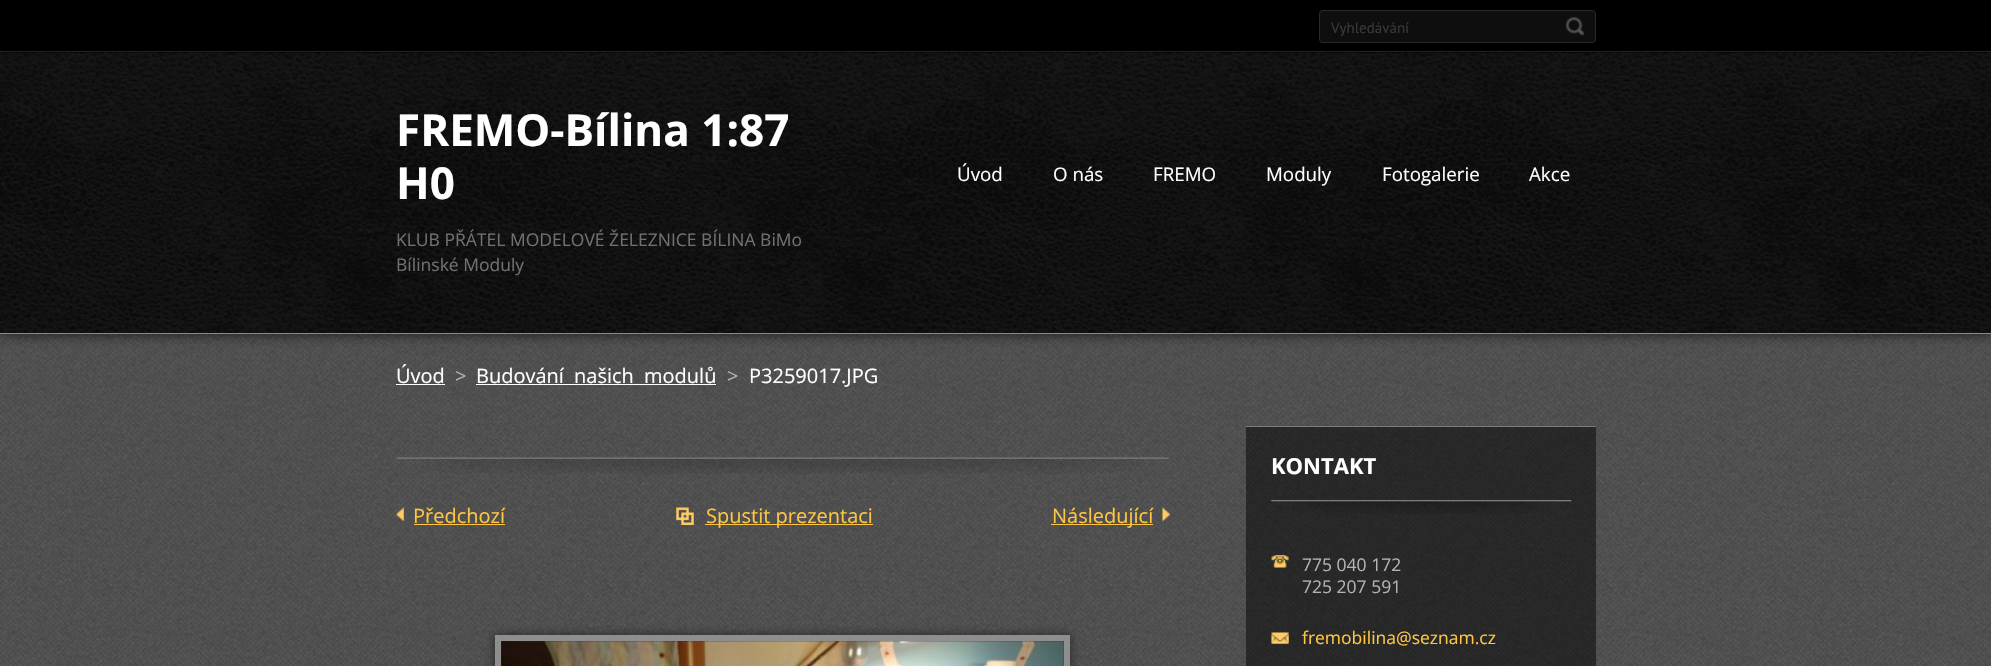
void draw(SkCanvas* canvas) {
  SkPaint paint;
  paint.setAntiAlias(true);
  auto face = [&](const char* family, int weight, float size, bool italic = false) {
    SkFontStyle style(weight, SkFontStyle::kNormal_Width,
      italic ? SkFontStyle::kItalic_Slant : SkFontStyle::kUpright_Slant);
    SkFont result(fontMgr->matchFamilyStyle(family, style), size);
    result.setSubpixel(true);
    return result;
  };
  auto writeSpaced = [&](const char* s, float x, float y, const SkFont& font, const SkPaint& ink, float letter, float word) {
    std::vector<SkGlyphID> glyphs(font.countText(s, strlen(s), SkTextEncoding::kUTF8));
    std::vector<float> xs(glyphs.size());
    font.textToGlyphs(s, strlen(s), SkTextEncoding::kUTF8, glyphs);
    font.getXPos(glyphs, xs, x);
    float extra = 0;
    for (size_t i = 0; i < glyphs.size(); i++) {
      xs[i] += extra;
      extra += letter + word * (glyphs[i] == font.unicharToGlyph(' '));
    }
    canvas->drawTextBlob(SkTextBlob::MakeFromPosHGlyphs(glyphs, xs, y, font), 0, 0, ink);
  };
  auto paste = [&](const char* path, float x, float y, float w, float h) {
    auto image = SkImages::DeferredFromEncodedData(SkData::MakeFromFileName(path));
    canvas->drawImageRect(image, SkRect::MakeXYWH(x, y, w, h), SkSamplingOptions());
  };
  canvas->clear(0xffffffff);
  paste("img/1.png", 0, 334, 1991, 332);
  paint.setColor(0xff000000);
  canvas->drawRect(SkRect::MakeXYWH(0, 0, 1991, 53), paint);
  paint.setColor(0xff303030);
  canvas->drawRect(SkRect::MakeXYWH(0, 51, 1991, 1), paint);
  paint.setColor(0xb3000000);
  paint.setMaskFilter(SkMaskFilter::MakeBlur(kNormal_SkBlurStyle, 6));
  canvas->drawRect(SkRect::MakeXYWH(0, 53, 1991, 281), paint);
  paint.setMaskFilter(nullptr);
  paint.setColor(0xff0e0e0e);
  canvas->drawRoundRect(SkRect::MakeXYWH(1319.5f, 10.5f, 276, 32), 3.5f, 3.5f, paint);
  paint.setStroke(true);
  paint.setStrokeWidth(1);
  paint.setColor(0xff292929);
  canvas->drawRoundRect(SkRect::MakeXYWH(1319.5f, 10.5f, 276, 32), 3.5f, 3.5f, paint);
  paste("img/2.png", 1566, 17, 18, 19);
  paste("img/3.png", 0, 52, 1991, 281);
  paint.setStroke(false);
  {
    const struct { float x, y, w, h; SkColor color; } items[] = {
      {0, 333, 1991, 1, 0xff8a8a8a},
      {396, 384, 49, 1, 0xffffffff},
      {476, 384, 240, 1, 0xffffffff},
    };
    for (auto [x, y, w, h, color] : items) {
      paint.setColor(color);
      canvas->drawRect(SkRect::MakeXYWH(x, y, w, h), paint);
    }
  }
  paste("img/4.png", 396, 457, 773, 17);
  paste("img/5.png", 396, 507, 8, 15);
  paint.setColor(0xffffc644);
  canvas->drawRect(SkRect::MakeXYWH(414, 524, 91, 1), paint);
  paste("img/6.png", 676, 507, 18, 18);
  canvas->drawRect(SkRect::MakeXYWH(705, 524, 168, 1), paint);
  paste("img/7.png", 1162, 507, 8, 15);
  canvas->drawRect(SkRect::MakeXYWH(1051, 524, 102, 1), paint);
  paint.setColor(0x80000000);
  paint.setMaskFilter(SkMaskFilter::MakeBlur(kNormal_SkBlurStyle, 5));
  canvas->drawRect(SkRect::MakeXYWH(495, 635, 575, 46), paint);
  paint.setMaskFilter(nullptr);
  paint.setStroke(true);
  paint.setStrokeWidth(6);
  paint.setColor(0xff8e8e8e);
  canvas->drawRect(SkRect::MakeXYWH(498, 638, 569, 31), paint);
  paste("img/8.png", 501, 641, 563, 25);
  paint.setStroke(false);
  paint.setColor(0x80000000);
  canvas->drawRect(SkRect::MakeXYWH(1246, 427, 350, 239), paint);
  paint.setColor(0xff7c7c7c);
  canvas->drawRect(SkRect::MakeXYWH(1246, 426, 350, 1), paint);
  paste("img/9.png", 1271, 500, 301, 14);
  paste("img/10.png", 1271, 555, 18, 13);
  paste("img/11.png", 1271, 632, 18, 12);
  auto f0 = face("PT Sans", 400, 15);
  paint.setColor(0xff383838);
  canvas->drawString("Vyhledávání", 1331, 33, f0, paint);
  auto f1 = face("Open Sans", 700, 44);
  paint.setColor(0xffffffff);
  canvas->drawString("FREMO-Bílina 1:87", 396, 146, f1, paint);
  canvas->drawString("H0", 396, 199, f1, paint);
  auto f2 = face("Open Sans", 400, 17.5f);
  paint.setColor(0xff717171);
  canvas->drawString("KLUB PŘÁTEL MODELOVÉ ŽELEZNICE BÍLINA BiMo", 396, 246, f2, paint);
  canvas->drawString("Bílinské Moduly", 396, 271, f2, paint);
  auto f3 = face("Open Sans", 400, 18.75f);
  paint.setColor(0xffffffff);
  {
    const struct { const char* s; float x, y; } items[] = {
      {"Úvod", 957, 181},
      {"O nás", 1053, 181},
      {"FREMO", 1153, 181},
      {"Moduly", 1266, 181},
      {"Fotogalerie", 1382, 181},
      {"Akce", 1529, 181},
    };
    for (auto [s, x, y] : items) {
      canvas->drawString(s, x, y, f3, paint);
    }
  }
  auto f4 = face("Open Sans", 400, 20);
  canvas->drawString("Úvod", 396, 383, f4, paint);
  paint.setColor(0xffb3b3b3);
  canvas->drawString(">", 455, 383, f4, paint);
  paint.setColor(0xffffffff);
  writeSpaced("Budování našich modulů", 476, 383, f4, paint, 0, 5);
  paint.setColor(0xffb3b3b3);
  canvas->drawString(">", 727, 383, f4, paint);
  paint.setColor(0xffffffff);
  canvas->drawString("P3259017.JPG", 749, 383, f4, paint);
  paint.setColor(0xffffc644);
  {
    const struct { const char* s; float x, y; } items[] = {
      {"Předchozí", 413, 523},
      {"Spustit prezentaci", 706, 523},
      {"Následující", 1052, 523},
    };
    for (auto [s, x, y] : items) {
      canvas->drawString(s, x, y, f4, paint);
    }
  }
  auto f5 = face("Open Sans", 700, 22);
  paint.setColor(0xffffffff);
  canvas->drawString("KONTAKT", 1271, 474, f5, paint);
  paint.setColor(0xffb3b3b3);
  canvas->drawString("775 040 172", 1302, 571, f2, paint);
  canvas->drawString("725 207 591", 1302, 593, f2, paint);
  paint.setColor(0xffffc644);
  canvas->drawString("fremobilina@seznam.cz", 1302, 644, f2, paint);
}
